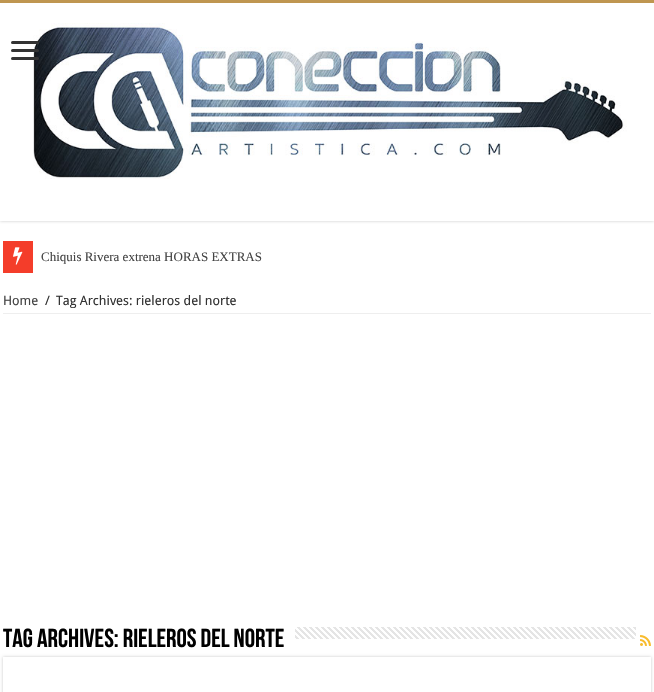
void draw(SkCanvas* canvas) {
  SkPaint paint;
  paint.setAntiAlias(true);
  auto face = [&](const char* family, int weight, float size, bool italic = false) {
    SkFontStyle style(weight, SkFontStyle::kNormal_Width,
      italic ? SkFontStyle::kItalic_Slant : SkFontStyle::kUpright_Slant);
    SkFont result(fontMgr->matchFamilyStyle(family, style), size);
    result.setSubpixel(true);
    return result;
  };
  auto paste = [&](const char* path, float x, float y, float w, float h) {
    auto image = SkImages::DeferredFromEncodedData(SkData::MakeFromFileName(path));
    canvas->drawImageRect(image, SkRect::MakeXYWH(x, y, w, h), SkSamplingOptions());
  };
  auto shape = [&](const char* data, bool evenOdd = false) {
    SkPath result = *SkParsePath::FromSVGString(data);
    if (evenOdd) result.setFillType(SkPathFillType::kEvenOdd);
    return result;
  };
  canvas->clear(0xffffffff);
  canvas->save();
  canvas->clipRect(SkRect::MakeXYWH(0, 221, 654, 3));
  paint.setColor(0xffcacaca);
  paint.setMaskFilter(SkMaskFilter::MakeBlur(kNormal_SkBlurStyle, 1.5f));
  canvas->drawRect(SkRect::MakeXYWH(0, 0, 654, 221), paint);
  paint.setMaskFilter(nullptr);
  canvas->restore();
  paint.setColor(0xffbf9650);
  canvas->drawRect(SkRect::MakeXYWH(0, 0, 654, 3), paint);
  paste("img/1.png", 33, 23, 594, 156);
  paint.setColor(0xff333333);
  canvas->drawRoundRect(SkRect::MakeXYWH(11, 41, 28, 3), 1.5f, 1.5f, paint);
  canvas->drawRoundRect(SkRect::MakeXYWH(11, 49, 28, 3), 1.5f, 1.5f, paint);
  canvas->drawRoundRect(SkRect::MakeXYWH(11, 57, 28, 3), 1.5f, 1.5f, paint);
  paint.setColor(0xfff43d2a);
  canvas->drawRect(SkRect::MakeXYWH(3, 241, 30, 32), paint);
  paste("img/2.png", 13, 247, 10, 18);
  paint.setColor(0xffeeeeee);
  canvas->drawRect(SkRect::MakeXYWH(3, 313, 648, 1), paint);
  paste("img/3.png", 295, 627, 341, 12);
  paste("img/4.png", 640, 635, 11, 11);
  canvas->save();
  canvas->clipPath(shape("M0 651H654V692H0ZM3 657H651V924H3Z", true), true);
  paint.setColor(0xffcacaca);
  paint.setMaskFilter(SkMaskFilter::MakeBlur(kNormal_SkBlurStyle, 1.5f));
  canvas->drawRect(SkRect::MakeXYWH(3, 657, 648, 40), paint);
  paint.setMaskFilter(nullptr);
  canvas->restore();
  auto f0 = face("Liberation Serif", 400, 13);
  paint.setColor(0xff444444);
  canvas->drawString("Chiquis Rivera extrena HORAS EXTRAS", 41, 261, f0, paint);
  auto f1 = face("Droid Sans", 400, 13);
  canvas->drawString("Home", 3, 305, f1, paint);
  paint.setColor(0xff333333);
  canvas->drawString("/", 45, 305, f1, paint);
  canvas->drawString("Tag Archives: rieleros del norte", 56, 305, f1, paint);
  auto f2 = face("Bebas Neue", 700, 26);
  paint.setColor(0xff000000);
  canvas->drawString("Tag Archives: rieleros del norte", 3, 647, f2, paint);
}
